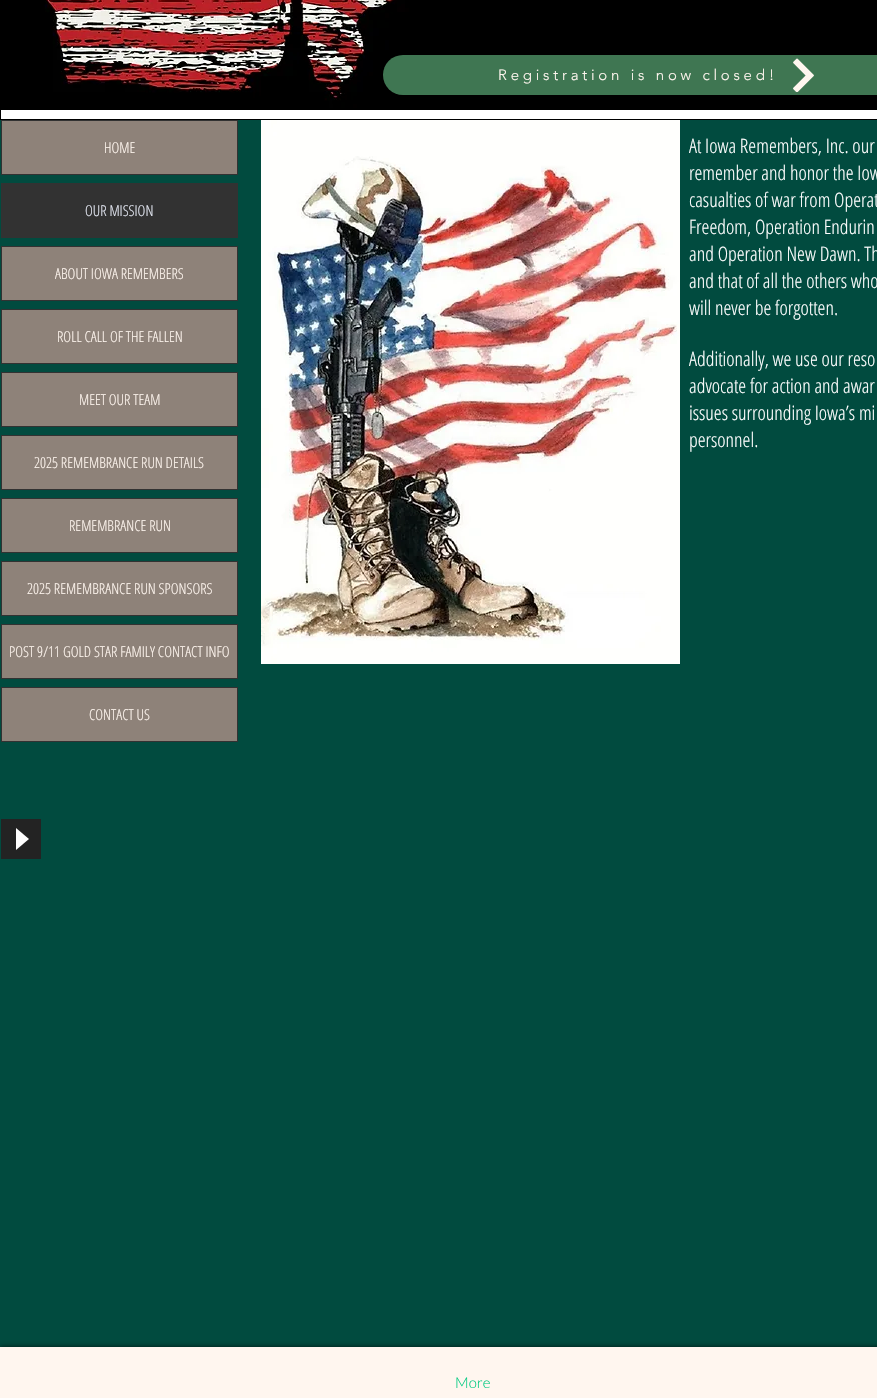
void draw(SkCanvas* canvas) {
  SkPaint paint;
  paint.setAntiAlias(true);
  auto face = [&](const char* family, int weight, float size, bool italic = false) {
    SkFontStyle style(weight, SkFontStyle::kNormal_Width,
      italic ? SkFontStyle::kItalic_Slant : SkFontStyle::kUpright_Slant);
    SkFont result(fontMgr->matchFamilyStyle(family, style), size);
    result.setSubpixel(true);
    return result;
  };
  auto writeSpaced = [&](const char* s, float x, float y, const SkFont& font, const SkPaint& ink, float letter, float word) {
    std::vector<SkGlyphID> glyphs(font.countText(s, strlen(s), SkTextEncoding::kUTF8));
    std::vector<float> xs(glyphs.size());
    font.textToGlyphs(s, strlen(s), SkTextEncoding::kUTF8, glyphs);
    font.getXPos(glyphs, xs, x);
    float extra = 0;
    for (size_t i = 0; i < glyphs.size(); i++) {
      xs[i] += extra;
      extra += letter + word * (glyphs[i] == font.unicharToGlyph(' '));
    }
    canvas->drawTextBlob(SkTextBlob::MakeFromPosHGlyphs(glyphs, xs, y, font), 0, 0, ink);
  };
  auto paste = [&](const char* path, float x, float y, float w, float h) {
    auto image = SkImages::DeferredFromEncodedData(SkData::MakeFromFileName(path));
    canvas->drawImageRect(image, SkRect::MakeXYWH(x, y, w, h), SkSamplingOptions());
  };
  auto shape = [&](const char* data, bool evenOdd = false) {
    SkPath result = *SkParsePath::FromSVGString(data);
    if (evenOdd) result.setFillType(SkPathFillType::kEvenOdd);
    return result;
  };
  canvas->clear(0xff014b3f);
  paste("img/1.png", 0, 0, 877, 120);
  paint.setColor(0xff3f7652);
  canvas->drawRoundRect(SkRect::MakeXYWH(383, 55, 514, 40), 20, 20, paint);
  paste("img/2.png", 793, 58, 21, 34);
  paint.setColor(0xffffffff);
  canvas->drawRect(SkRect::MakeXYWH(1, 110, 876, 9), paint);
  paint.setColor(0xff8e8279);
  canvas->drawRect(SkRect::MakeXYWH(1.5f, 120.5f, 236, 54), paint);
  paint.setStroke(true);
  paint.setStrokeWidth(1);
  paint.setColor(0xff323232);
  canvas->drawRect(SkRect::MakeXYWH(1.5f, 120.5f, 236, 54), paint);
  paint.setStroke(false);
  canvas->drawRect(SkRect::MakeXYWH(1, 183, 237, 55), paint);
  paint.setColor(0xff8e8279);
  canvas->drawRect(SkRect::MakeXYWH(1.5f, 246.5f, 236, 54), paint);
  paint.setStroke(true);
  paint.setColor(0xff323232);
  canvas->drawRect(SkRect::MakeXYWH(1.5f, 246.5f, 236, 54), paint);
  paint.setStroke(false);
  paint.setColor(0xff8e8279);
  canvas->drawRect(SkRect::MakeXYWH(1.5f, 309.5f, 236, 54), paint);
  paint.setStroke(true);
  paint.setColor(0xff323232);
  canvas->drawRect(SkRect::MakeXYWH(1.5f, 309.5f, 236, 54), paint);
  paint.setStroke(false);
  paint.setColor(0xff8e8279);
  canvas->drawRect(SkRect::MakeXYWH(1.5f, 372.5f, 236, 54), paint);
  paint.setStroke(true);
  paint.setColor(0xff323232);
  canvas->drawRect(SkRect::MakeXYWH(1.5f, 372.5f, 236, 54), paint);
  paint.setStroke(false);
  paint.setColor(0xff8e8279);
  canvas->drawRect(SkRect::MakeXYWH(1.5f, 435.5f, 236, 54), paint);
  paint.setStroke(true);
  paint.setColor(0xff323232);
  canvas->drawRect(SkRect::MakeXYWH(1.5f, 435.5f, 236, 54), paint);
  paint.setStroke(false);
  paint.setColor(0xff8e8279);
  canvas->drawRect(SkRect::MakeXYWH(1.5f, 498.5f, 236, 54), paint);
  paint.setStroke(true);
  paint.setColor(0xff323232);
  canvas->drawRect(SkRect::MakeXYWH(1.5f, 498.5f, 236, 54), paint);
  paint.setStroke(false);
  paint.setColor(0xff8e8279);
  canvas->drawRect(SkRect::MakeXYWH(1.5f, 561.5f, 236, 54), paint);
  paint.setStroke(true);
  paint.setColor(0xff323232);
  canvas->drawRect(SkRect::MakeXYWH(1.5f, 561.5f, 236, 54), paint);
  paint.setStroke(false);
  paint.setColor(0xff8e8279);
  canvas->drawRect(SkRect::MakeXYWH(1.5f, 624.5f, 236, 54), paint);
  paint.setStroke(true);
  paint.setColor(0xff323232);
  canvas->drawRect(SkRect::MakeXYWH(1.5f, 624.5f, 236, 54), paint);
  paint.setStroke(false);
  paint.setColor(0xff8e8279);
  canvas->drawRect(SkRect::MakeXYWH(1.5f, 687.5f, 236, 54), paint);
  paint.setStroke(true);
  paint.setColor(0xff323232);
  canvas->drawRect(SkRect::MakeXYWH(1.5f, 687.5f, 236, 54), paint);
  paste("img/3.png", 261, 120, 419, 544);
  paint.setStroke(false);
  paint.setColor(0xff232323);
  canvas->drawRect(SkRect::MakeXYWH(1, 819, 40, 40), paint);
  paint.setColor(0xffffffff);
  canvas->drawPath(shape("M16 850V828L29 839Z"), paint);
  paint.setColor(0xb3000000);
  paint.setMaskFilter(SkMaskFilter::MakeBlur(kNormal_SkBlurStyle, 2.5f));
  canvas->drawRect(SkRect::MakeXYWH(0, 1347, 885, 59), paint);
  paint.setMaskFilter(nullptr);
  paint.setColor(0xfffff6ef);
  canvas->drawRect(SkRect::MakeXYWH(0, 1347, 877, 51), paint);
  auto f0 = face("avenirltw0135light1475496", 300, 15);
  writeSpaced("Registration is now closed!", 498, 80, f0, paint, 3.75f, 0);
  auto f1 = face("Open Sans Condensed", 300, 15);
  canvas->drawString("HOME", 104, 153, f1, paint);
  paint.setColor(0xffe6eaf5);
  canvas->drawString("OUR MISSION", 85, 216, f1, paint);
  paint.setColor(0xfffff6ef);
  {
    const struct { const char* s; float x, y; } items[] = {
      {"ABOUT IOWA REMEMBERS", 55, 279},
      {"ROLL CALL OF THE FALLEN", 57, 342},
      {"MEET OUR TEAM", 79, 405},
      {"2025 REMEMBRANCE RUN DETAILS", 34, 468},
      {"REMEMBRANCE RUN", 69, 531},
      {"2025 REMEMBRANCE RUN SPONSORS", 27, 594},
      {"POST 9/11 GOLD STAR FAMILY CONTACT INFO", 9, 657},
      {"CONTACT US", 89, 720},
    };
    for (auto [s, x, y] : items) {
      canvas->drawString(s, x, y, f1, paint);
    }
  }
  auto f2 = face("Open Sans Condensed", 300, 20);
  paint.setColor(0xffffffff);
  {
    const struct { const char* s; float x, y; } items[] = {
      {"At Iowa Remembers, Inc. our", 689, 153},
      {"remember and honor the Iow", 689, 180},
      {"casualties of war from Operat", 689, 207},
      {"Freedom, Operation Endurin", 689, 234},
      {"and Operation New Dawn. Th", 689, 261},
      {"and that of all the others who", 689, 288},
      {"will never be forgotten.", 689, 315},
      {"Additionally, we use our reso", 689, 366},
      {"advocate for action and awar", 689, 393},
      {"issues surrounding Iowa’s mi", 689, 420},
      {"personnel.", 689, 447},
    };
    for (auto [s, x, y] : items) {
      canvas->drawString(s, x, y, f2, paint);
    }
  }
  auto f3 = face("Lato", 300, 15);
  paint.setColor(0xff02ca81);
  canvas->drawString("More", 455, 1388, f3, paint);
}
